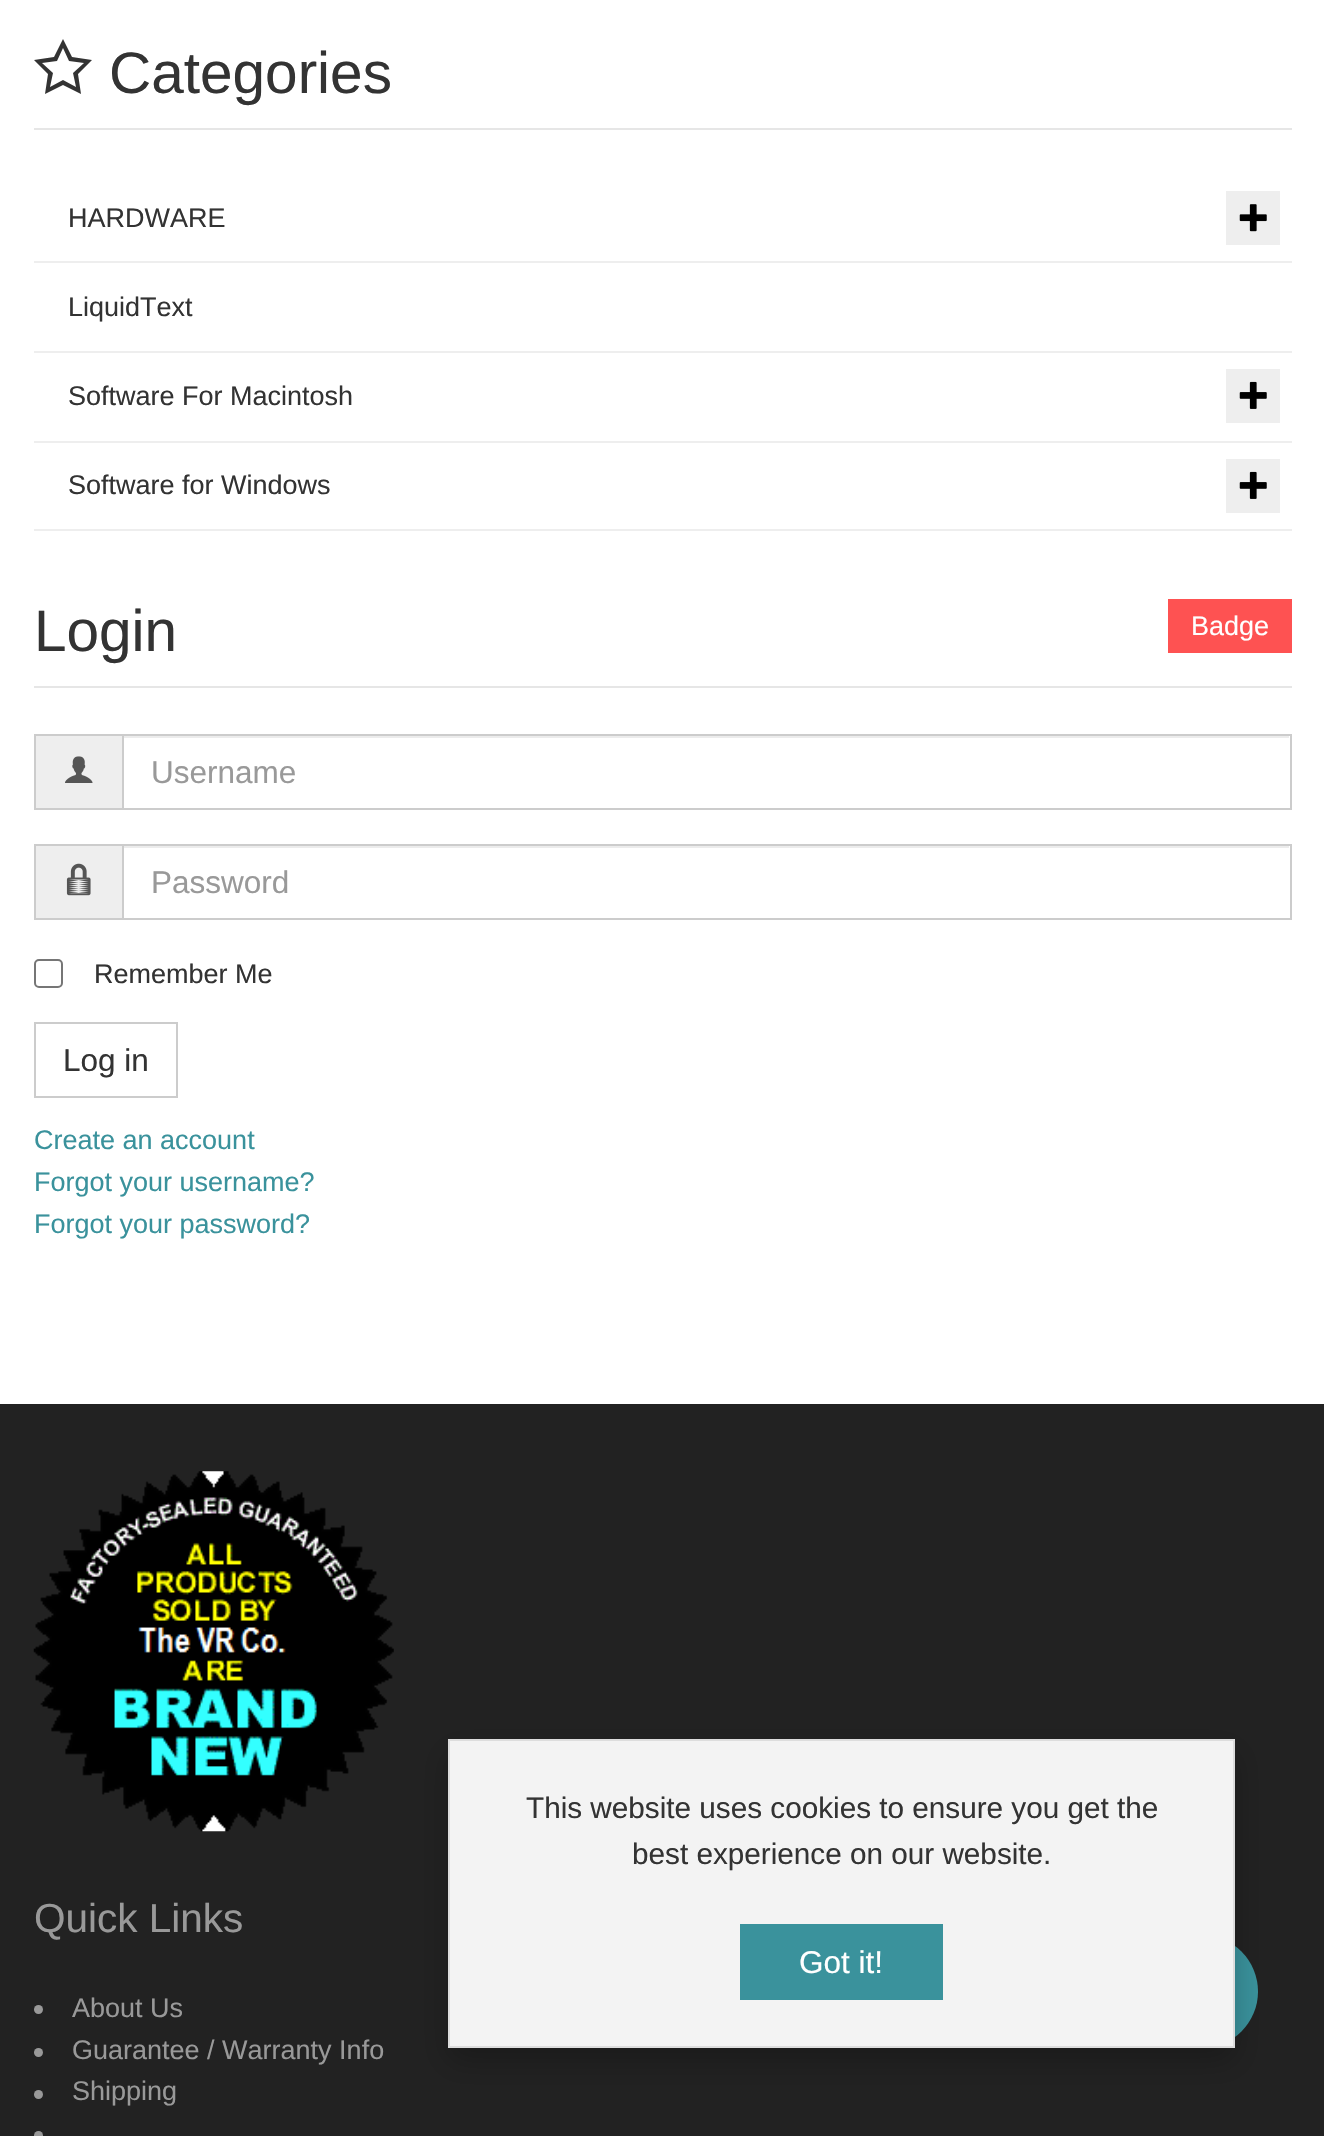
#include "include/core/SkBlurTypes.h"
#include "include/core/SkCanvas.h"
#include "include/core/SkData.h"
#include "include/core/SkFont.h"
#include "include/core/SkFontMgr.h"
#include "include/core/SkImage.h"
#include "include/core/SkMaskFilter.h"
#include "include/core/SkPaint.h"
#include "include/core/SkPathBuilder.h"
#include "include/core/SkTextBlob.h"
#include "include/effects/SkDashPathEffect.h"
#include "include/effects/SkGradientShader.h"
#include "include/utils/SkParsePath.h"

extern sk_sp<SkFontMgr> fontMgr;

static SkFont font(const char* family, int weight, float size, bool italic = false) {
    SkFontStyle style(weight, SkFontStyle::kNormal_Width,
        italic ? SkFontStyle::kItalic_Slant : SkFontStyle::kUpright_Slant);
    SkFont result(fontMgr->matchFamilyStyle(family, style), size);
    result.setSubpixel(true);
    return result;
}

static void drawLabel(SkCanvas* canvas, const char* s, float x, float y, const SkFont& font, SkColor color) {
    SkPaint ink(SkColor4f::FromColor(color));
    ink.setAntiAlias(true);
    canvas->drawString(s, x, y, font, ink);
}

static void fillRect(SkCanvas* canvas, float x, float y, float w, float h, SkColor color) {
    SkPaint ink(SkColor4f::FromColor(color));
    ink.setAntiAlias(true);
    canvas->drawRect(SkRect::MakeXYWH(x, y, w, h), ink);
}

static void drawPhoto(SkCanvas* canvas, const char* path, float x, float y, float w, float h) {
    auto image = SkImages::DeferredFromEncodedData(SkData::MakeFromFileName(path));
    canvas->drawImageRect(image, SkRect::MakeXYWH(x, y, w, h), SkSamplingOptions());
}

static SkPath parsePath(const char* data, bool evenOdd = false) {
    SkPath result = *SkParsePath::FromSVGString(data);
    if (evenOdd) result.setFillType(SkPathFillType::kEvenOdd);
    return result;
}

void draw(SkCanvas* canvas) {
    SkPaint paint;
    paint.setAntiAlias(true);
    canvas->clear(0xFFFFFFFF);
    fillRect(canvas, 34, 128, 1258, 2, 0xFFE6E6E6);
    paint.setColor(0xFF333333);
    canvas->drawPath(parsePath("M92 60L72 57L63 39L54 57L34 60L48 74L45 94L63 85L81 94L78 74ZM63 80L50 87L53 73L42 63L57 61L63 48L69 61L84 63L73 73L76 87Z"), paint);
    SkFont font1 = font("Liberation Sans", 400, 58.5f);
    drawLabel(canvas, "Categories", 109, 93, font1, 0xFF333333);
    fillRect(canvas, 34, 261, 1258, 2, 0xFFEEEEEE);
    SkFont font2 = font("Liberation Sans", 400, 27);
    drawLabel(canvas, "HARDWARE", 68, 227, font2, 0xFF333333);
    fillRect(canvas, 1226, 191, 54, 54, 0xFFEEEEEE);
    drawPhoto(canvas, "assets/img1.png", 1239, 204, 28, 28);
    fillRect(canvas, 34, 351, 1258, 2, 0xFFEEEEEE);
    drawLabel(canvas, "LiquidText", 68, 316, font2, 0xFF333333);
    fillRect(canvas, 34, 441, 1258, 2, 0xFFEEEEEE);
    drawLabel(canvas, "Software For Macintosh", 68, 405, font2, 0xFF333333);
    fillRect(canvas, 1226, 369, 54, 54, 0xFFEEEEEE);
    drawPhoto(canvas, "assets/img2.png", 1239, 381, 28, 28);
    fillRect(canvas, 34, 529, 1258, 2, 0xFFEEEEEE);
    drawLabel(canvas, "Software for Windows", 68, 494, font2, 0xFF333333);
    fillRect(canvas, 1226, 459, 54, 54, 0xFFEEEEEE);
    drawPhoto(canvas, "assets/img2.png", 1239, 471, 28, 28);
    fillRect(canvas, 34, 686, 1258, 2, 0xFFE6E6E6);
    drawLabel(canvas, "Login", 34, 651, font1, 0xFF333333);
    fillRect(canvas, 1168, 599, 124, 54, 0xFFFE5252);
    drawLabel(canvas, "Badge", 1191, 635, font2, 0xFFFFFFFF);
    fillRect(canvas, 36, 736, 86, 72, 0xFFEEEEEE);
    fillRect(canvas, 34, 734, 88, 2, 0xFFCCCCCC);
    fillRect(canvas, 34, 808, 88, 2, 0xFFCCCCCC);
    fillRect(canvas, 34, 734, 2, 76, 0xFFCCCCCC);
    drawPhoto(canvas, "assets/img3.png", 65, 756, 28, 27);
    fillRect(canvas, 124, 736, 1165, 2, 0xFFECECEC);
    paint.setStroke(true);
    paint.setStrokeWidth(2);
    paint.setColor(0xFFCCCCCC);
    canvas->drawRect(SkRect::MakeXYWH(123, 735, 1168, 74), paint);
    SkFont font3 = font("Liberation Sans", 400, 31.5f);
    drawLabel(canvas, "Username", 151, 783, font3, 0xFF999999);
    fillRect(canvas, 36, 846, 86, 72, 0xFFEEEEEE);
    fillRect(canvas, 34, 844, 88, 2, 0xFFCCCCCC);
    fillRect(canvas, 34, 918, 88, 2, 0xFFCCCCCC);
    fillRect(canvas, 34, 844, 2, 76, 0xFFCCCCCC);
    drawPhoto(canvas, "assets/img4.png", 66, 863, 25, 33);
    fillRect(canvas, 124, 846, 1165, 2, 0xFFECECEC);
    canvas->drawRect(SkRect::MakeXYWH(123, 845, 1168, 74), paint);
    drawLabel(canvas, "Password", 151, 893, font3, 0xFF999999);
    paint.setColor(0xFF767676);
    canvas->drawRoundRect(SkRect::MakeXYWH(35, 960, 27, 27), 4, 4, paint);
    drawLabel(canvas, "Remember Me", 94, 983, font2, 0xFF333333);
    paint.setColor(0xFFCCCCCC);
    canvas->drawRect(SkRect::MakeXYWH(35, 1023, 142, 74), paint);
    drawLabel(canvas, "Log in", 63, 1071, font3, 0xFF333333);
    drawLabel(canvas, "Create an account", 34, 1149, font2, 0xFF3A929C);
    drawLabel(canvas, "Forgot your username?", 34, 1191, font2, 0xFF3A929C);
    drawLabel(canvas, "Forgot your password?", 34, 1233, font2, 0xFF3A929C);
    fillRect(canvas, 0, 1404, 1324, 732, 0xFF222222);
    drawPhoto(canvas, "assets/img5.png", 33, 1471, 361, 361);
    SkFont font4 = font("Liberation Sans", 400, 40.5f);
    drawLabel(canvas, "Quick Links", 34, 1932, font4, 0xFF999999);
    paint.setStroke(false);
    paint.setColor(0xFF999999);
    canvas->drawCircle(38.5f, 2009.5f, 4.5f, paint);
    drawLabel(canvas, "About Us", 72, 2017, font2, 0xFF999999);
    canvas->drawCircle(38.5f, 2052.5f, 4.5f, paint);
    drawLabel(canvas, "Guarantee / Warranty Info", 72, 2059, font2, 0xFF999999);
    canvas->drawCircle(38.5f, 2094.5f, 4.5f, paint);
    drawLabel(canvas, "Shipping", 72, 2100, font2, 0xFF999999);
    canvas->drawCircle(38.5f, 2135.5f, 4.5f, paint);
    paint.setColor(0xFF3A929C);
    canvas->drawCircle(1201.5f, 1991.5f, 56.5f, paint);
    paint.setColor(0x3B000000);
    paint.setMaskFilter(SkMaskFilter::MakeBlur(kNormal_SkBlurStyle, 14.5f));
    canvas->drawRect(SkRect::MakeXYWH(448, 1753, 787, 308), paint);
    paint.setMaskFilter(nullptr);
    paint.setColor(0xFFF3F3F3);
    canvas->drawRect(SkRect::MakeXYWH(449, 1740, 785, 307), paint);
    paint.setStroke(true);
    paint.setColor(0xFFDDDDDD);
    canvas->drawRect(SkRect::MakeXYWH(449, 1740, 785, 307), paint);
    SkFont font5 = font("Liberation Sans", 400, 29.7f);
    drawLabel(canvas, "This website uses cookies to ensure you get the", 526, 1818, font5, 0xFF333333);
    drawLabel(canvas, "best experience on our website.", 632, 1864, font5, 0xFF333333);
    fillRect(canvas, 740, 1924, 203, 76, 0xFF3A929C);
    drawLabel(canvas, "Got it!", 799, 1973, font3, 0xFFFFFFFF);
}
